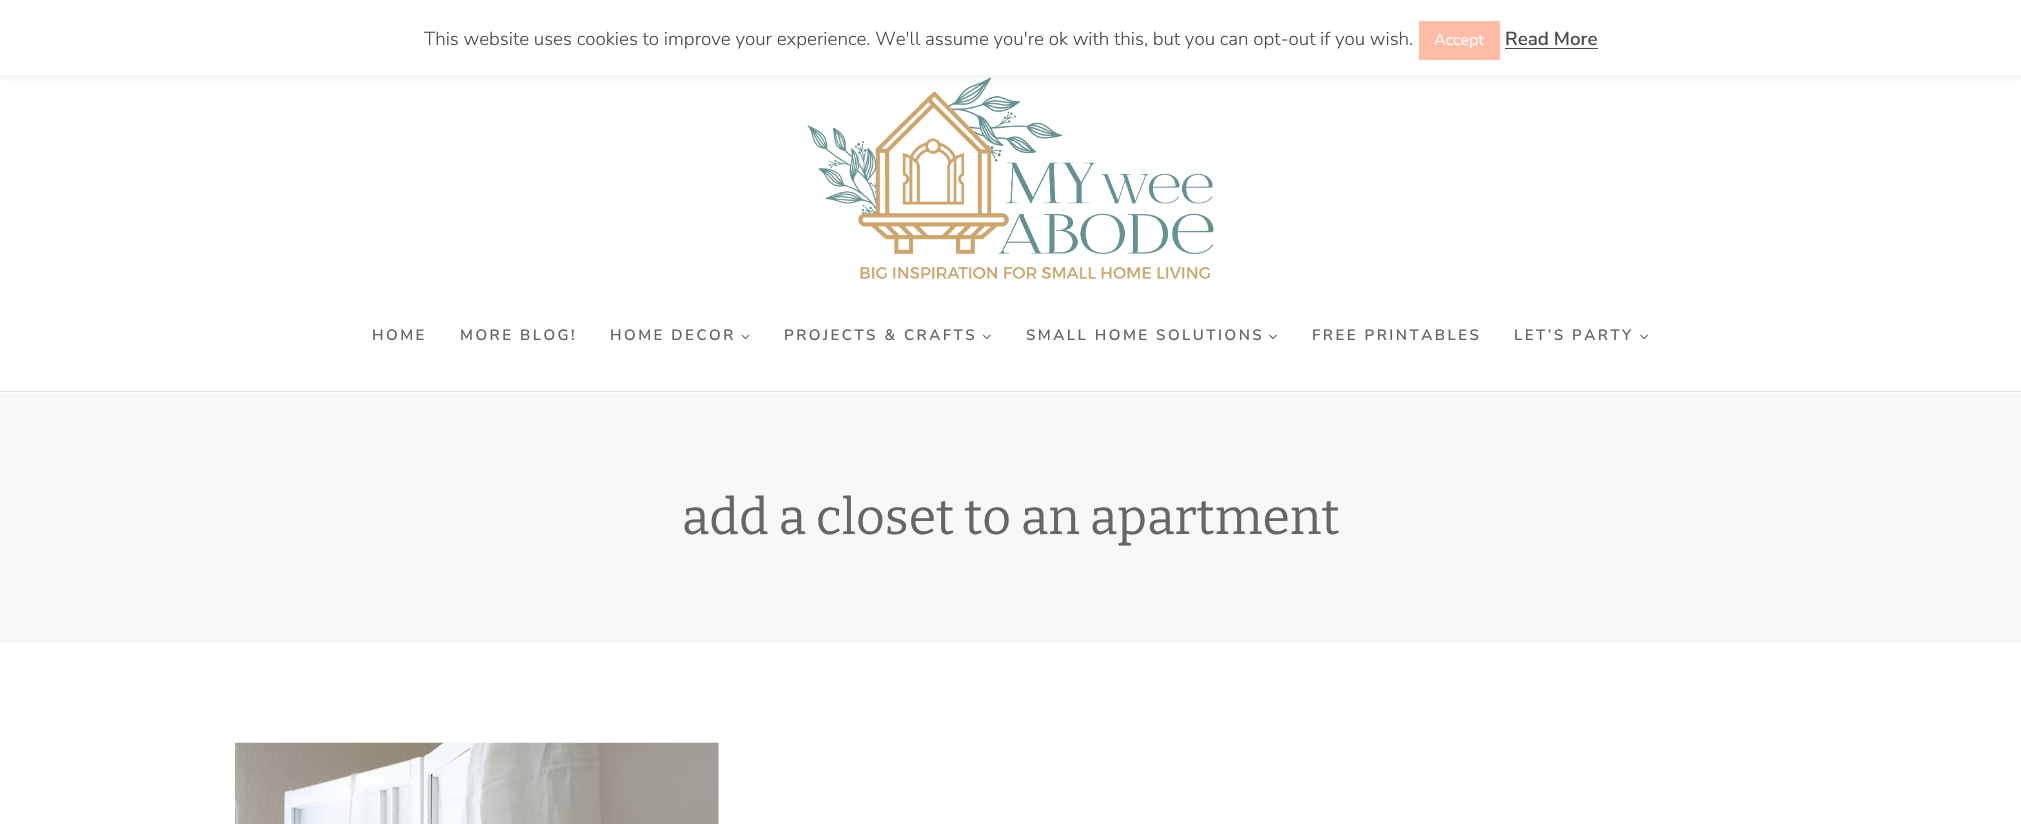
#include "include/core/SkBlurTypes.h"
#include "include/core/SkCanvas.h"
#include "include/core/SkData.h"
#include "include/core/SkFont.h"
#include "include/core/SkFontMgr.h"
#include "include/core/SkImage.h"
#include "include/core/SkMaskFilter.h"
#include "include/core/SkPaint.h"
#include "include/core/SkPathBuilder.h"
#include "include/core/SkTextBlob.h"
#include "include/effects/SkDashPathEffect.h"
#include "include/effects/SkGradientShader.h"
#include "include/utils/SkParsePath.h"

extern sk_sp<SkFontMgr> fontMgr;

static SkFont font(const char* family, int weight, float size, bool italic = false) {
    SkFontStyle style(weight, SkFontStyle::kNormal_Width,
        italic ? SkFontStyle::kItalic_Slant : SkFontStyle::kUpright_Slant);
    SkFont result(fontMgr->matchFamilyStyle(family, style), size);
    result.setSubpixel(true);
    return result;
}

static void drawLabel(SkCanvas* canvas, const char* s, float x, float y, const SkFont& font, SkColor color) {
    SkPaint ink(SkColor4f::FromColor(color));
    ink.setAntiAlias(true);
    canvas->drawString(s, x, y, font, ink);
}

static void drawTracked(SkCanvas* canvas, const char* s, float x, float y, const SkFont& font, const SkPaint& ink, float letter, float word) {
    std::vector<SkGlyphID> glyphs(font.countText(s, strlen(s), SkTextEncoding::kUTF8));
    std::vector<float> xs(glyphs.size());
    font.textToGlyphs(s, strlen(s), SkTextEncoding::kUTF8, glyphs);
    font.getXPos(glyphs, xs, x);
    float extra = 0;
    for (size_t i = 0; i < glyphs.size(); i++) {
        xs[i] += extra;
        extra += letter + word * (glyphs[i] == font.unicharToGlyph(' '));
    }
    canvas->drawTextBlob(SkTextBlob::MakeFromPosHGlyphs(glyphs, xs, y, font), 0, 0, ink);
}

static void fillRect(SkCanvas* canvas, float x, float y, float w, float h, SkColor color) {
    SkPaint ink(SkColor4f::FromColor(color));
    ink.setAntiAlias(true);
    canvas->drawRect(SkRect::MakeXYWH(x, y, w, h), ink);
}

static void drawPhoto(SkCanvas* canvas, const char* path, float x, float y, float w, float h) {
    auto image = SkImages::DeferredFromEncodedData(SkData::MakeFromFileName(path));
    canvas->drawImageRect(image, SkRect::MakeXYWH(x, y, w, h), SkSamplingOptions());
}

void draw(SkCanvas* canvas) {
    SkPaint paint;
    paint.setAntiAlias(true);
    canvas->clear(0xFFFFFFFF);
    drawPhoto(canvas, "assets/img1.png", 807, 77, 407, 202);
    paint.setColor(0x4DACABAB);
    paint.setMaskFilter(SkMaskFilter::MakeBlur(kNormal_SkBlurStyle, 6));
    canvas->drawRect(SkRect::MakeXYWH(0, -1, 2021, 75), paint);
    paint.setMaskFilter(nullptr);
    fillRect(canvas, 0, 0, 2021, 75, 0xFFFFFFFF);
    SkFont font1 = font("Nunito Sans", 300, 18.75f);
    drawLabel(canvas, "This website uses cookies to improve your experience. We'll assume you're ok with this, but you can opt-out if you wish.", 424, 45, font1, 0xFF4B4B4B);
    fillRect(canvas, 1419, 21, 81, 39, 0xFFFFBDA8);
    SkFont font2 = font("Nunito Sans", 400, 16);
    drawLabel(canvas, "Accept", 1434, 45, font2, 0xFFFFFFFF);
    SkFont font3 = font("Nunito Sans", 600, 18.75f);
    drawLabel(canvas, "Read More", 1505, 45, font3, 0xFF4B4B4B);
    fillRect(canvas, 1505, 48, 93, 1, 0xFF4B4B4B);
    fillRect(canvas, 0, 391, 2021, 1, 0xFFE6DED8);
    SkFont font4 = font("Nunito Sans", 600, 15);
    paint.setColor(0xFF666666);
    drawTracked(canvas, "HOME", 372, 340, font4, paint, 2.5f, 0);
    drawTracked(canvas, "MORE BLOG!", 460, 340, font4, paint, 2.5f, 0);
    drawTracked(canvas, "HOME DECOR", 610, 340, font4, paint, 2.5f, 0);
    drawPhoto(canvas, "assets/img2.png", 741, 334, 9, 6);
    drawTracked(canvas, "PROJECTS & CRAFTS", 784, 340, font4, paint, 2.5f, 0);
    drawPhoto(canvas, "assets/img3.png", 982, 334, 9, 6);
    drawTracked(canvas, "SMALL HOME SOLUTIONS", 1026, 340, font4, paint, 2.5f, 0);
    drawPhoto(canvas, "assets/img4.png", 1269, 334, 8, 6);
    drawTracked(canvas, "FREE PRINTABLES", 1312, 340, font4, paint, 2.5f, 0);
    drawTracked(canvas, "LET’S PARTY", 1514, 340, font4, paint, 2.5f, 0);
    drawPhoto(canvas, "assets/img5.png", 1640, 334, 9, 6);
    fillRect(canvas, 0, 393, 2021, 250, 0xFFFAF8F6);
    SkFont font5 = font("Bitter", 400, 50);
    drawLabel(canvas, "add a closet to an apartment", 682, 534, font5, 0xFF666666);
    drawPhoto(canvas, "assets/img6.png", 235, 742, 484, 82);
}
